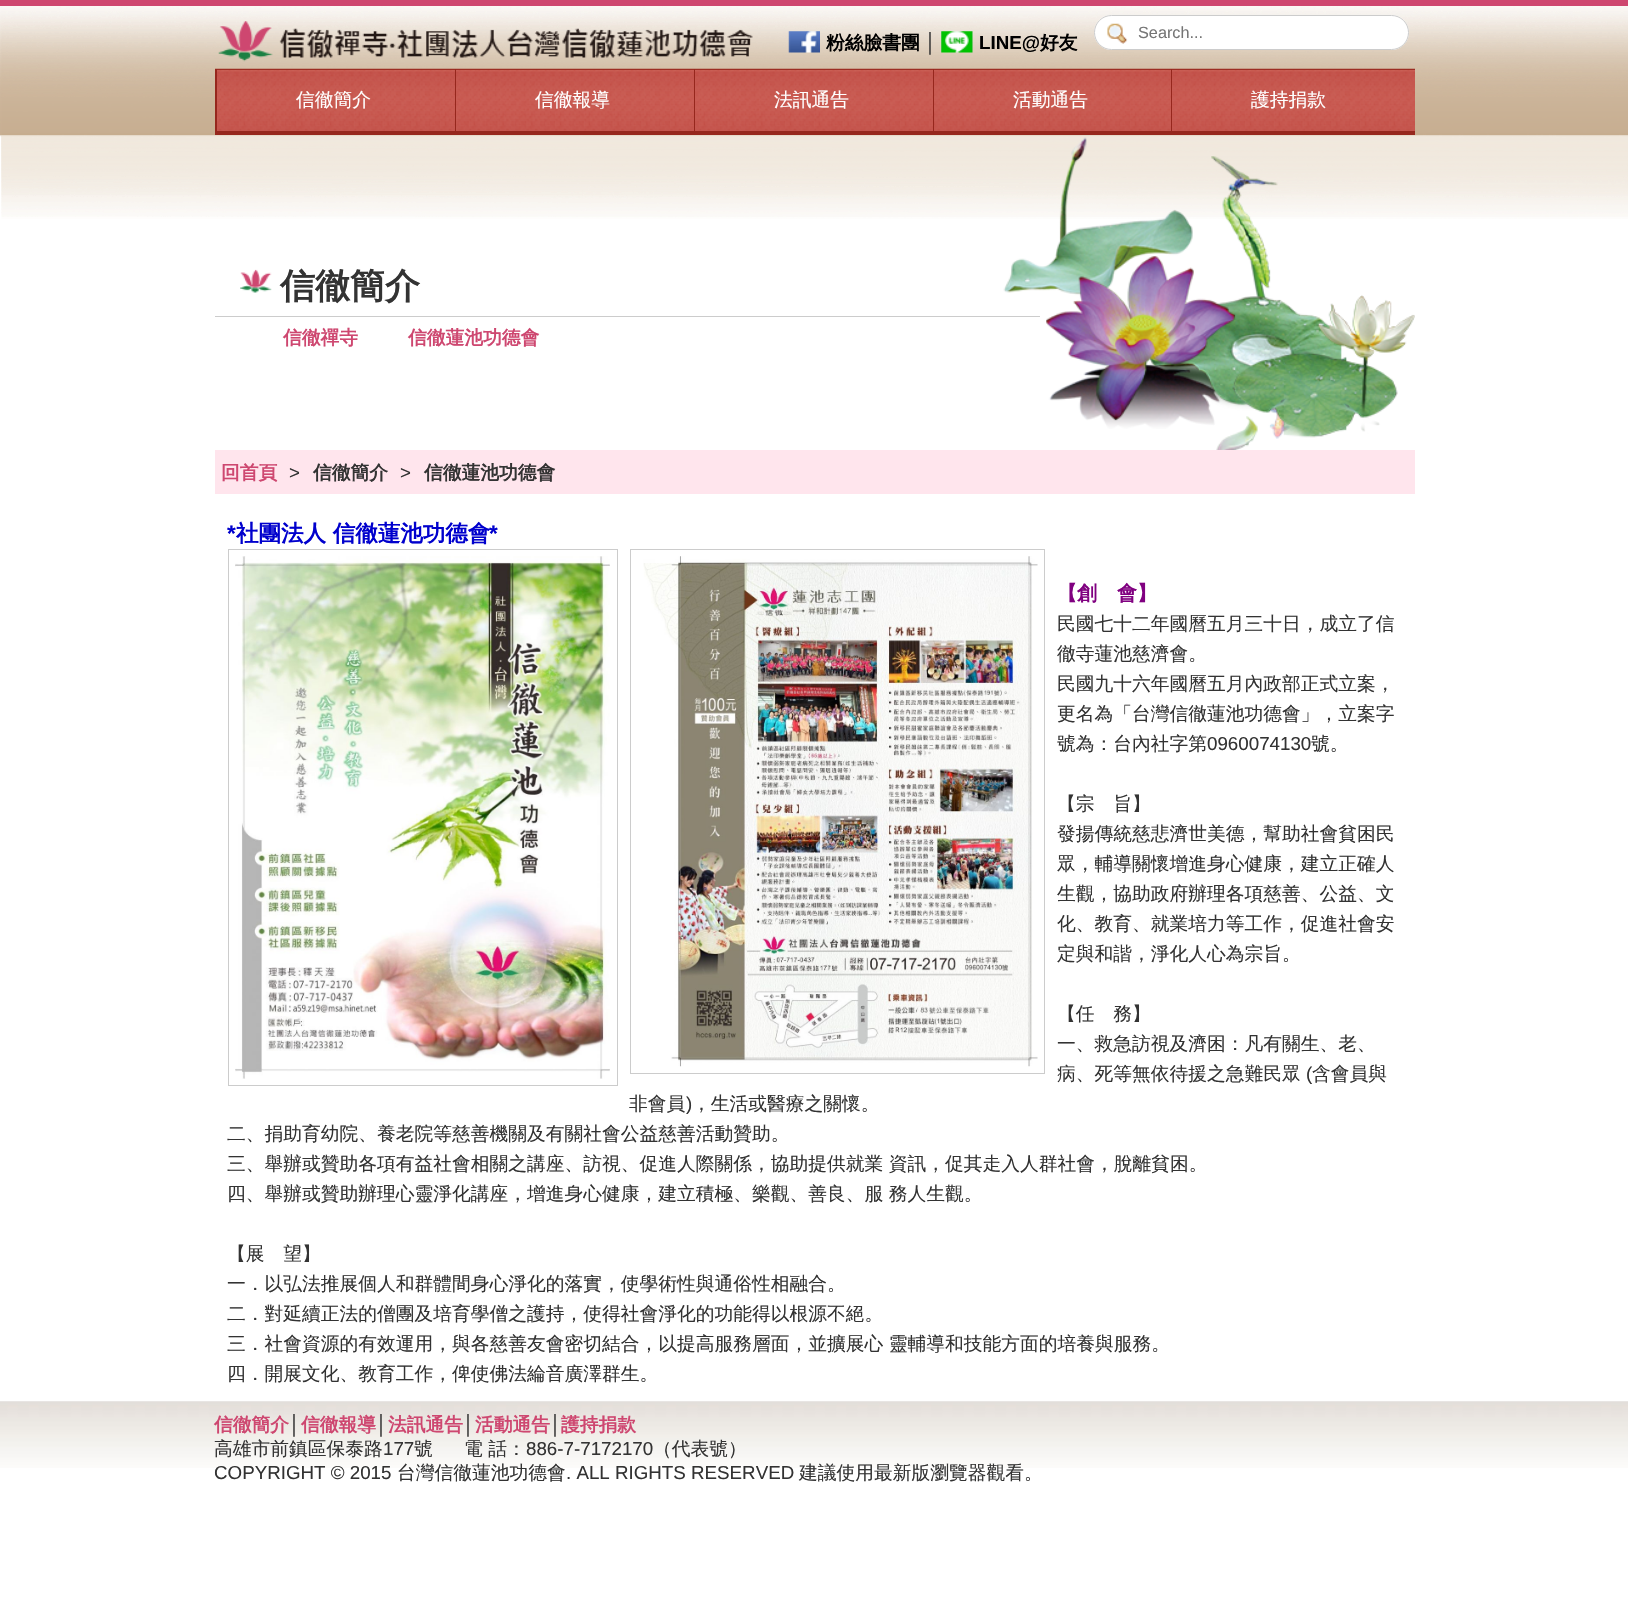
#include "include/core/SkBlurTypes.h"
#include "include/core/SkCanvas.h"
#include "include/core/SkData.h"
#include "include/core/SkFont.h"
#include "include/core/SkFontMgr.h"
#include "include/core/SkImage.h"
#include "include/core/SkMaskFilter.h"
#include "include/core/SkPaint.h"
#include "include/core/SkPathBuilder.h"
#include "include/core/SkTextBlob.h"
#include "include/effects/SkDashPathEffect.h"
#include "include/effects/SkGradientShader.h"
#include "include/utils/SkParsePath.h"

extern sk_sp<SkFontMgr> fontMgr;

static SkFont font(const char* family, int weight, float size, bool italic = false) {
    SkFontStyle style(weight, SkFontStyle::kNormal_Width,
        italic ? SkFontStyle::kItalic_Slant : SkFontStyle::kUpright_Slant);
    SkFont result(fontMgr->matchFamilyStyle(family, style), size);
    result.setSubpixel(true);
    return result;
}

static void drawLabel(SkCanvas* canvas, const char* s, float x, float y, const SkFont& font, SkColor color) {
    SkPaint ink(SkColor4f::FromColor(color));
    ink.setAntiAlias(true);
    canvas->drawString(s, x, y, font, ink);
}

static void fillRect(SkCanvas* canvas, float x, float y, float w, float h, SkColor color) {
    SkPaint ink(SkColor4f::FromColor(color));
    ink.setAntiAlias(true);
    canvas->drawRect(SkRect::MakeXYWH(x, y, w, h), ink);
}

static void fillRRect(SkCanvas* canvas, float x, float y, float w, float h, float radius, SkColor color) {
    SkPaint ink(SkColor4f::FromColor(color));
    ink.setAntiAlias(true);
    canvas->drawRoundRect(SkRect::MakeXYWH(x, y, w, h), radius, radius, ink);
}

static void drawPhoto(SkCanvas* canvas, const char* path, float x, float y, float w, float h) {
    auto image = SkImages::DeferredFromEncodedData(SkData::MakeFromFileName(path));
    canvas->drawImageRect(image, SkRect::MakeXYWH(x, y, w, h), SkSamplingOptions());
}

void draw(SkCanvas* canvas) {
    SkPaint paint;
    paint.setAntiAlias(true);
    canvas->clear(0xFFFFFFFF);
    drawPhoto(canvas, "assets/img1.png", 0, 6, 1628, 213);
    drawPhoto(canvas, "assets/img2.png", 0, 6, 1628, 211);
    fillRect(canvas, 0, 0, 1628, 6, 0xFFCE4770);
    drawPhoto(canvas, "assets/img3.png", 218, 21, 535, 41);
    drawPhoto(canvas, "assets/img4.png", 788, 31, 32, 22);
    SkFont font1 = font("WenQuanYi Zen Hei", 700, 18.75f);
    drawLabel(canvas, "粉絲臉書團", 826, 49, font1, 0xFF000000);
    SkFont font2 = font("Liberation Sans", 400, 18.75f);
    drawLabel(canvas, "│", 925, 49, font2, 0xFF333333);
    drawPhoto(canvas, "assets/img5.png", 941, 31, 32, 22);
    SkFont font3 = font("Liberation Sans", 700, 18.75f);
    drawLabel(canvas, "LINE@", 979, 49, font3, 0xFF000000);
    drawLabel(canvas, "好友", 1040, 49, font1, 0xFF000000);
    fillRRect(canvas, 1094, 15, 315, 35, 17.5f, 0xFFFFFFFF);
    drawPhoto(canvas, "assets/img6.png", 1107, 23, 21, 21);
    paint.setStroke(true);
    paint.setStrokeWidth(1);
    paint.setColor(0xFFCCCCCC);
    canvas->drawRoundRect(SkRect::MakeXYWH(1094.5f, 15.5f, 314, 34), 17, 17, paint);
    SkFont font4 = font("Liberation Sans", 400, 16.25f);
    drawLabel(canvas, "Search...", 1138, 38, font4, 0xFF757575);
    drawPhoto(canvas, "assets/img7.png", 215, 68, 1200, 63);
    fillRect(canvas, 215, 131, 1200, 4, 0xFF96271D);
    fillRect(canvas, 215, 69, 1, 66, 0xFF96271D);
    fillRect(canvas, 216, 69, 1, 62, 0xFF96271D);
    SkFont font5 = font("WenQuanYi Zen Hei", 500, 18.75f);
    drawLabel(canvas, "信徹簡介", 296, 106, font5, 0xFFFFFFFF);
    fillRect(canvas, 455, 69, 1, 62, 0xFF96271D);
    drawLabel(canvas, "信徹報導", 535, 106, font5, 0xFFFFFFFF);
    fillRect(canvas, 694, 69, 1, 62, 0xFF96271D);
    drawLabel(canvas, "法訊通告", 774, 106, font5, 0xFFFFFFFF);
    fillRect(canvas, 933, 69, 1, 62, 0xFF96271D);
    drawLabel(canvas, "活動通告", 1013, 106, font5, 0xFFFFFFFF);
    fillRect(canvas, 1171, 69, 1, 62, 0xFF96271D);
    drawLabel(canvas, "護持捐款", 1251, 106, font5, 0xFFFFFFFF);
    drawPhoto(canvas, "assets/img8.png", 1003, 137, 412, 313);
    fillRect(canvas, 215, 316, 825, 1, 0xFFCCCCCC);
    drawPhoto(canvas, "assets/img9.png", 240, 269, 32, 24);
    SkFont font6 = font("WenQuanYi Zen Hei", 700, 35);
    drawLabel(canvas, "信徹簡介", 280, 298, font6, 0xFF333333);
    drawLabel(canvas, "信徹禪寺", 283, 344, font1, 0xFFCE4770);
    drawLabel(canvas, "信徹蓮池功德會", 408, 344, font1, 0xFFCE4770);
    fillRect(canvas, 215, 450, 1200, 44, 0xFFFFE5ED);
    drawLabel(canvas, "回首頁", 221, 479, font1, 0xFFCE4770);
    drawLabel(canvas, ">", 289, 479, font2, 0xFF333333);
    drawLabel(canvas, "信徹簡介", 313, 479, font1, 0xFF333333);
    drawLabel(canvas, ">", 400, 479, font2, 0xFF333333);
    drawLabel(canvas, "信徹蓮池功德會", 424, 479, font1, 0xFF333333);
    SkFont font7 = font("Liberation Sans", 700, 22.5f);
    drawLabel(canvas, "*", 227, 541, font7, 0xFF0000CD);
    SkFont font8 = font("WenQuanYi Zen Hei", 700, 22.5f);
    drawLabel(canvas, "社團法人 信徹蓮池功德會", 236, 541, font8, 0xFF0000CD);
    drawLabel(canvas, "*", 489, 541, font7, 0xFF0000CD);
    canvas->drawRect(SkRect::MakeXYWH(228.5f, 549.5f, 389, 536), paint);
    drawPhoto(canvas, "assets/img10.png", 235, 556, 375, 523);
    canvas->drawRect(SkRect::MakeXYWH(630.5f, 549.5f, 414, 524), paint);
    drawPhoto(canvas, "assets/img11.png", 643, 556, 395, 511);
    SkFont font9 = font("WenQuanYi Zen Hei", 700, 20);
    drawLabel(canvas, "【創　會】", 1057, 600, font9, 0xFF800080);
    drawLabel(canvas, "民國七十二年國曆五月三十日，成立了信", 1057, 630, font5, 0xFF333333);
    drawLabel(canvas, "徹寺蓮池慈濟會。", 1057, 660, font5, 0xFF333333);
    drawLabel(canvas, "民國九十六年國曆五月內政部正式立案，", 1057, 690, font5, 0xFF333333);
    drawLabel(canvas, "更名為「台灣信徹蓮池功德會」，立案字", 1057, 720, font5, 0xFF333333);
    drawLabel(canvas, "號為：台內社字第", 1057, 750, font5, 0xFF333333);
    drawLabel(canvas, "0960074130", 1207, 750, font2, 0xFF333333);
    drawLabel(canvas, "號。", 1311, 750, font5, 0xFF333333);
    drawLabel(canvas, "【宗　旨】", 1057, 810, font5, 0xFF333333);
    drawLabel(canvas, "發揚傳統慈悲濟世美德，幫助社會貧困民", 1057, 840, font5, 0xFF333333);
    drawLabel(canvas, "眾，輔導關懷增進身心健康，建立正確人", 1057, 870, font5, 0xFF333333);
    drawLabel(canvas, "生觀，協助政府辦理各項慈善、公益、文", 1057, 900, font5, 0xFF333333);
    drawLabel(canvas, "化、教育、就業培力等工作，促進社會安", 1057, 930, font5, 0xFF333333);
    drawLabel(canvas, "定與和諧，淨化人心為宗旨。", 1057, 960, font5, 0xFF333333);
    drawLabel(canvas, "【任　務】", 1057, 1020, font5, 0xFF333333);
    drawLabel(canvas, "一、救急訪視及濟困：凡有關生、老、", 1057, 1050, font5, 0xFF333333);
    drawLabel(canvas, "病、死等無依待援之急難民眾", 1057, 1080, font5, 0xFF333333);
    drawLabel(canvas, "(", 1306, 1080, font2, 0xFF333333);
    drawLabel(canvas, "含會員與", 1312, 1080, font5, 0xFF333333);
    drawLabel(canvas, "非會員", 629, 1110, font5, 0xFF333333);
    drawLabel(canvas, ")", 686, 1110, font2, 0xFF333333);
    drawLabel(canvas, "，生活或醫療之關懷。", 692, 1110, font5, 0xFF333333);
    drawLabel(canvas, "二、捐助育幼院、養老院等慈善機關及有關社會公益慈善活動贊助。", 227, 1140, font5, 0xFF333333);
    drawLabel(canvas, "三、舉辦或贊助各項有益社會相關之講座、訪視、促進人際關係，協助提供就業 資訊，促其走入人群社會，脫離貧困。", 227, 1170, font5, 0xFF333333);
    drawLabel(canvas, "四、舉辦或贊助辦理心靈淨化講座，增進身心健康，建立積極、樂觀、善良、服 務人生觀。", 227, 1200, font5, 0xFF333333);
    drawLabel(canvas, "【展　望】", 227, 1260, font5, 0xFF333333);
    drawLabel(canvas, "一．以弘法推展個人和群體間身心淨化的落實，使學術性與通俗性相融合。", 227, 1290, font5, 0xFF333333);
    drawLabel(canvas, "二．對延續正法的僧團及培育學僧之護持，使得社會淨化的功能得以根源不絕。", 227, 1320, font5, 0xFF333333);
    drawLabel(canvas, "三．社會資源的有效運用，與各慈善友會密切結合，以提高服務層面，並擴展心 靈輔導和技能方面的培養與服務。", 227, 1350, font5, 0xFF333333);
    drawLabel(canvas, "四．開展文化、教育工作，俾使佛法綸音廣澤群生。", 227, 1380, font5, 0xFF333333);
    drawPhoto(canvas, "assets/img12.png", 0, 1401, 1628, 67);
    drawLabel(canvas, "信徹簡介", 214, 1431, font1, 0xFFCE4770);
    drawLabel(canvas, "│", 289, 1431, font2, 0xFF333333);
    drawLabel(canvas, "信徹報導", 301, 1431, font1, 0xFFCE4770);
    drawLabel(canvas, "│", 376, 1431, font2, 0xFF333333);
    drawLabel(canvas, "法訊通告", 388, 1431, font1, 0xFFCE4770);
    drawLabel(canvas, "│", 463, 1431, font2, 0xFF333333);
    drawLabel(canvas, "活動通告", 475, 1431, font1, 0xFFCE4770);
    drawLabel(canvas, "│", 550, 1431, font2, 0xFF333333);
    drawLabel(canvas, "護持捐款", 561, 1431, font1, 0xFFCE4770);
    drawLabel(canvas, "高雄市前鎮區保泰路", 214, 1455, font5, 0xFF333333);
    drawLabel(canvas, "177", 383, 1455, font2, 0xFF333333);
    drawLabel(canvas, "號", 414, 1455, font5, 0xFF333333);
    drawLabel(canvas, "電 話：", 464, 1455, font5, 0xFF333333);
    drawLabel(canvas, "886-7-7172170", 526, 1455, font2, 0xFF333333);
    drawLabel(canvas, "（代表號）", 653, 1455, font5, 0xFF333333);
    drawLabel(canvas, "COPYRIGHT © 2015", 214, 1479, font2, 0xFF333333);
    drawLabel(canvas, "台灣信徹蓮池功德會", 397, 1479, font5, 0xFF333333);
    drawLabel(canvas, ". ALL RIGHTS RESERVED", 566, 1479, font2, 0xFF333333);
    drawLabel(canvas, "建議使用最新版瀏覽器觀看。", 799, 1479, font5, 0xFF333333);
}
